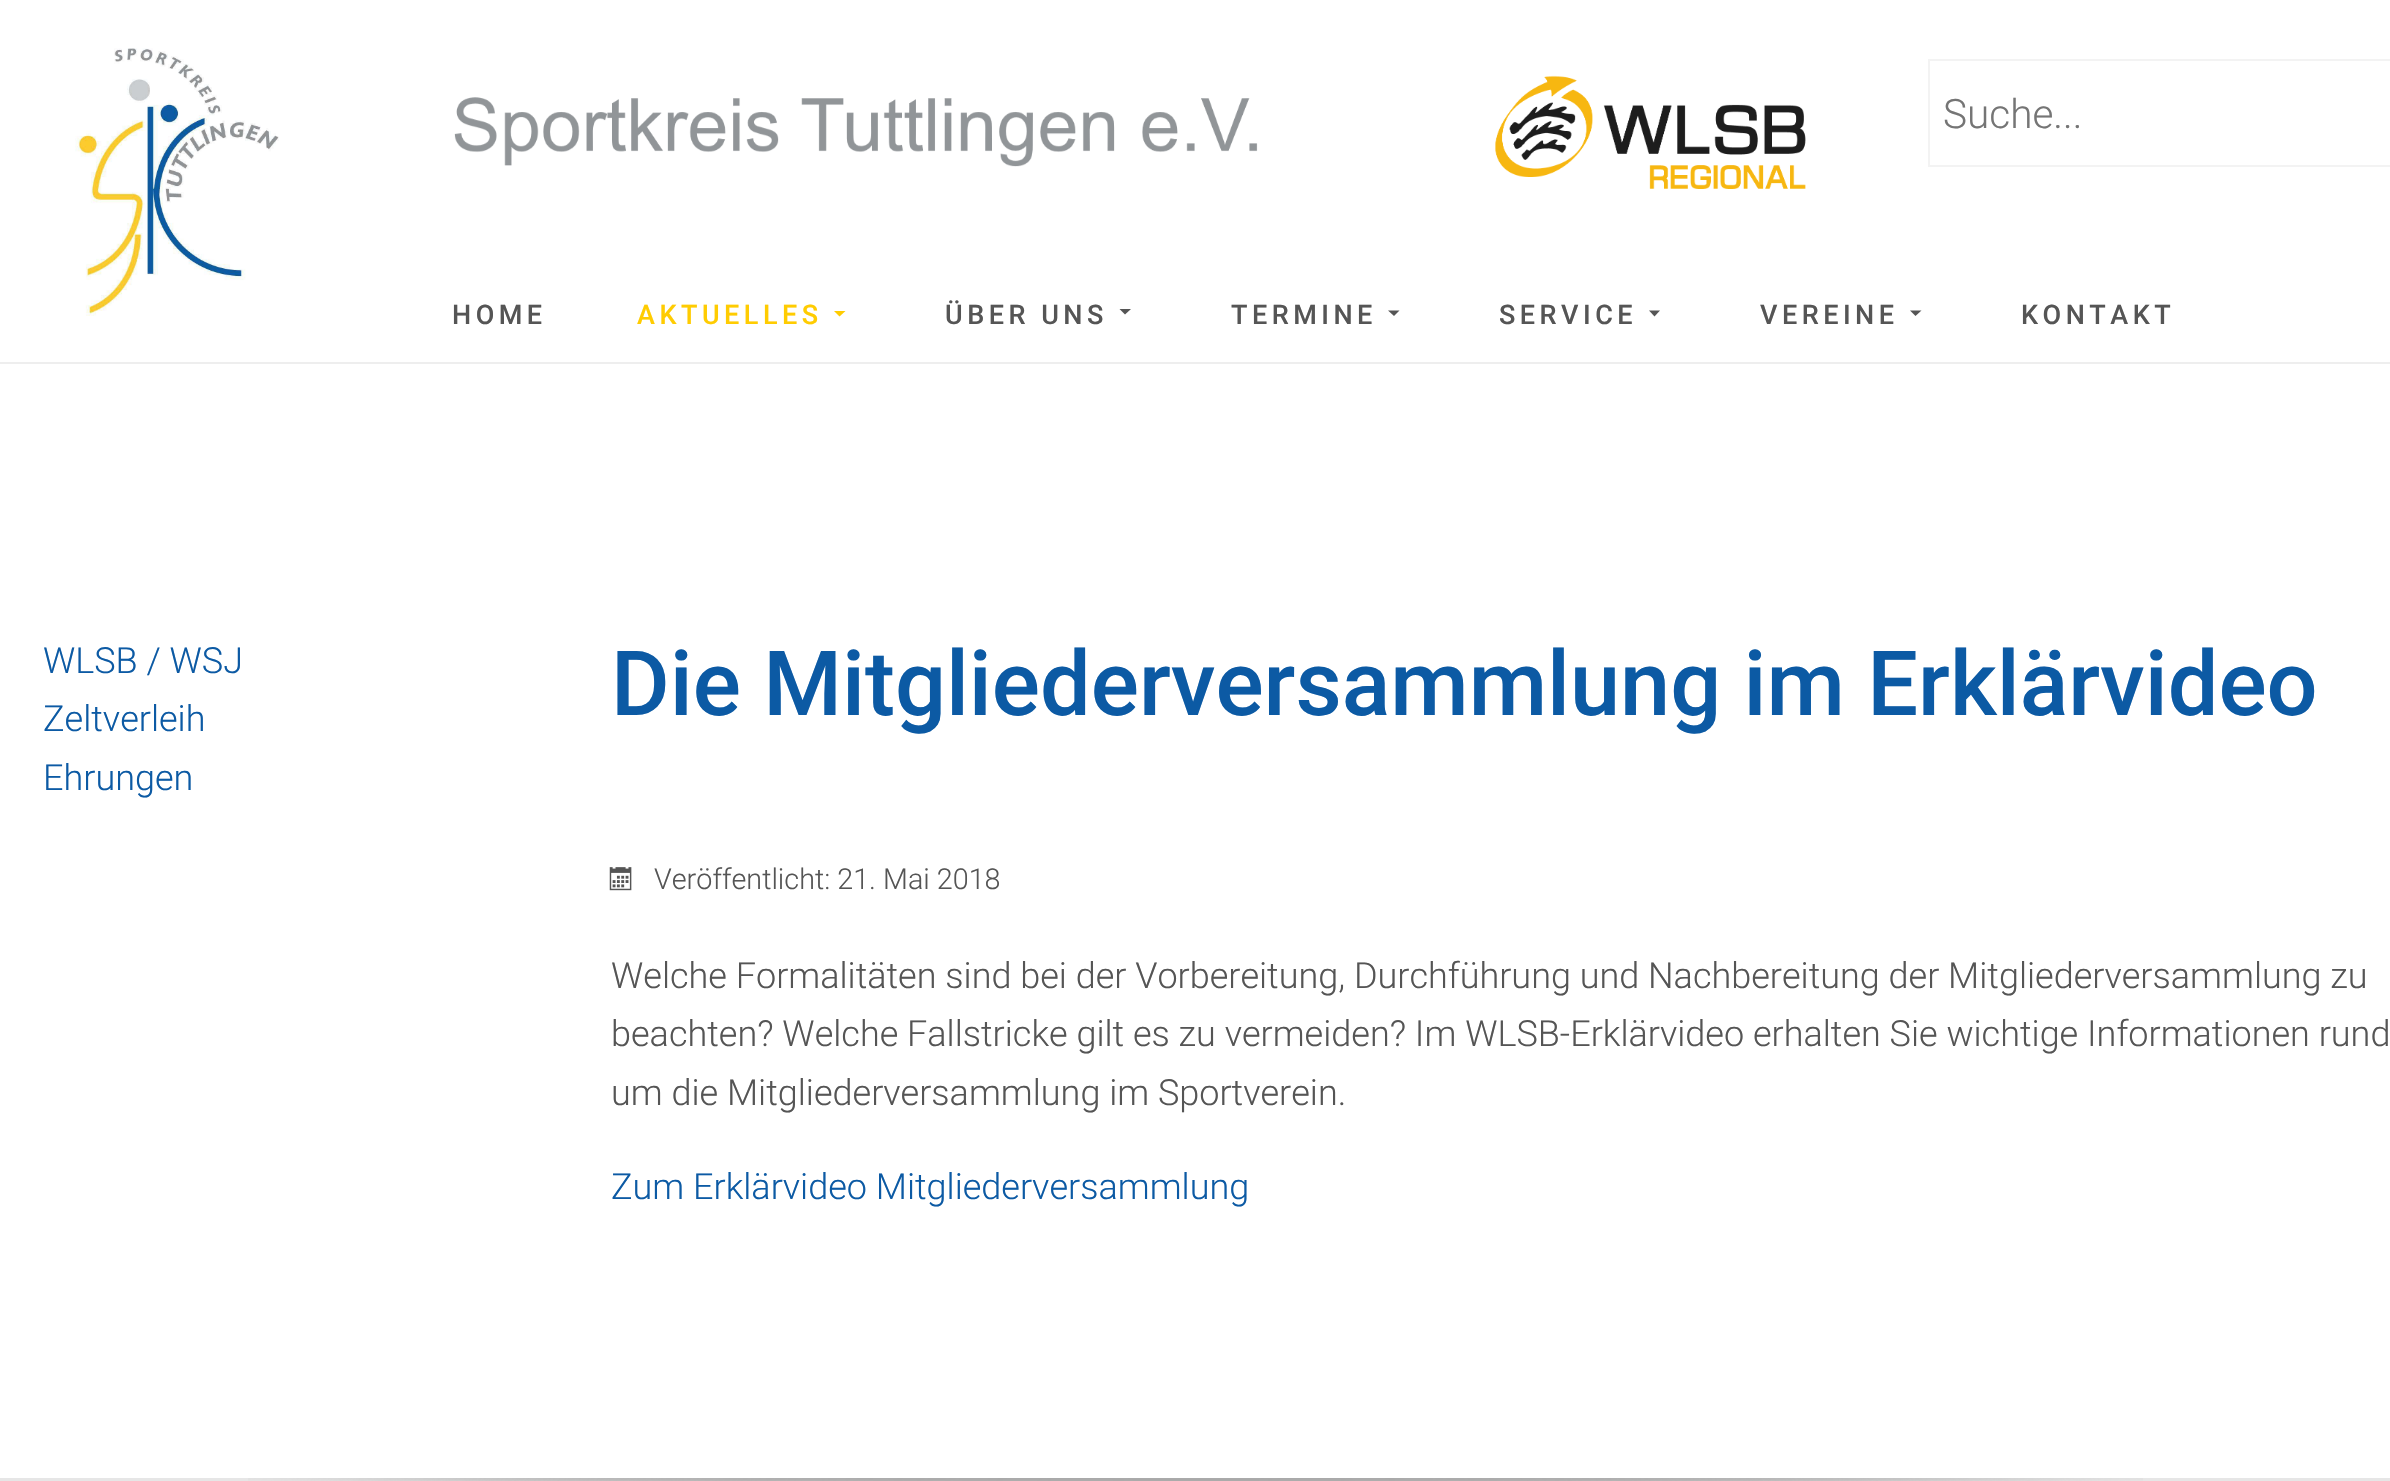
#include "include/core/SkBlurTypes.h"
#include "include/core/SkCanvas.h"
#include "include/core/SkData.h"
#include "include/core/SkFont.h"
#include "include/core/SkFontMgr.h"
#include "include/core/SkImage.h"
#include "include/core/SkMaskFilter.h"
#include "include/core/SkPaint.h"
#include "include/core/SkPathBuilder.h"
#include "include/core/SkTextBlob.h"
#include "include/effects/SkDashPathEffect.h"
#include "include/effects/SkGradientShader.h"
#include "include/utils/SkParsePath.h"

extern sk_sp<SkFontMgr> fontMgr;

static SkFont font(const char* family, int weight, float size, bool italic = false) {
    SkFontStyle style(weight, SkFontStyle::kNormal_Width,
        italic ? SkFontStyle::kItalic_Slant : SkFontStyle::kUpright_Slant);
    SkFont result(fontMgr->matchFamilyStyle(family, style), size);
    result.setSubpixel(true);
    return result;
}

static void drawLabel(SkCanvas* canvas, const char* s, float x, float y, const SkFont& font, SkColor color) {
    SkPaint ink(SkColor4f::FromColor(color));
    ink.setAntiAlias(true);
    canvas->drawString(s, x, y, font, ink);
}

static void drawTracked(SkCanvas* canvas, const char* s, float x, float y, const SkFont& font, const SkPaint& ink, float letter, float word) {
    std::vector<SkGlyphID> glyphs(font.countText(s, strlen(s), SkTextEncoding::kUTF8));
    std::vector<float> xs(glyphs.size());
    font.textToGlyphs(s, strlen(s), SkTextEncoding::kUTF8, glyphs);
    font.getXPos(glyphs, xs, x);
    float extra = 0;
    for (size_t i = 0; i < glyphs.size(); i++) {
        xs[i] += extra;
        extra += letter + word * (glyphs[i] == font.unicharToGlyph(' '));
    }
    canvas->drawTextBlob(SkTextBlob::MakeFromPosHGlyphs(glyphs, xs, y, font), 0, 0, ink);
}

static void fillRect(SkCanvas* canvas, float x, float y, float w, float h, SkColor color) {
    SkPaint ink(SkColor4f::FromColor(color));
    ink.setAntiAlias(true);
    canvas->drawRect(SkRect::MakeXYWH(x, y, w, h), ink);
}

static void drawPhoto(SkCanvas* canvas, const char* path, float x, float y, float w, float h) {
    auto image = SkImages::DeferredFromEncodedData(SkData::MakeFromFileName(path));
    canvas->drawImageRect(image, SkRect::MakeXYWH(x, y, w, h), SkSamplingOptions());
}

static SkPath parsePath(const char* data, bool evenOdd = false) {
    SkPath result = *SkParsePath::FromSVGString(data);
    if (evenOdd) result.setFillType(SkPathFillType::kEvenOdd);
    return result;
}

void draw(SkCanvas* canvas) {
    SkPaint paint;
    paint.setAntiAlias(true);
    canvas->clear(0xFFFFFFFF);
    fillRect(canvas, 0, 362, 2390, 2, 0xFFEEEEEE);
    drawPhoto(canvas, "assets/img1.png", 75, 48, 204, 268);
    drawPhoto(canvas, "assets/img2.png", 454, 97, 804, 70);
    drawPhoto(canvas, "assets/img3.png", 1495, 75, 311, 114);
    paint.setStroke(true);
    paint.setStrokeWidth(2);
    paint.setColor(0xFFF3F3F3);
    canvas->drawRect(SkRect::MakeXYWH(1929, 60, 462, 106), paint);
    SkFont font1 = font("Roboto", 300, 40.5f);
    drawLabel(canvas, "Suche...", 1943, 128, font1, 0xFF757575);
    SkFont font2 = font("Roboto", 500, 27);
    paint.setStroke(false);
    paint.setColor(0xFF555555);
    drawTracked(canvas, "HOME", 452, 324, font2, paint, 4.5f, 0);
    paint.setColor(0xFFFFCC01);
    drawTracked(canvas, "AKTUELLES", 637, 324, font2, paint, 4.5f, 0);
    canvas->drawPath(parsePath("M834 311H845.5L839.5 316.5Z"), paint);
    paint.setColor(0xFF555555);
    drawTracked(canvas, "ÜBER UNS", 945, 324, font2, paint, 4.5f, 0);
    canvas->drawPath(parsePath("M1119.5 309H1131L1125 314.5Z"), paint);
    drawTracked(canvas, "TERMINE", 1231, 324, font2, paint, 4.5f, 0);
    canvas->drawPath(parsePath("M1388 310.5H1399.5L1394 316Z"), paint);
    drawTracked(canvas, "SERVICE", 1499, 324, font2, paint, 4.5f, 0);
    canvas->drawPath(parsePath("M1649 310.5H1660L1654.5 316.5Z"), paint);
    drawTracked(canvas, "VEREINE", 1760, 324, font2, paint, 4.5f, 0);
    canvas->drawPath(parsePath("M1910 310.5H1921.5L1915.5 316Z"), paint);
    drawTracked(canvas, "KONTAKT", 2021, 324, font2, paint, 4.5f, 0);
    SkFont font3 = font("Roboto", 300, 36);
    drawLabel(canvas, "WLSB / WSJ", 43, 673, font3, 0xFF0C5AA4);
    drawLabel(canvas, "Zeltverleih", 43, 731, font3, 0xFF0C5AA4);
    drawLabel(canvas, "Ehrungen", 43, 790, font3, 0xFF0C5AA4);
    SkFont font4 = font("Roboto", 500, 90);
    drawLabel(canvas, "Die Mitgliederversammlung im Erklärvideo", 611, 715, font4, 0xFF0C5AA4);
    drawPhoto(canvas, "assets/img4.png", 609, 867, 23, 24);
    SkFont font5 = font("Roboto", 300, 28.75f);
    drawLabel(canvas, "Veröffentlicht: 21. Mai 2018", 654, 889, font5, 0xFF555555);
    drawLabel(canvas, "Welche Formalitäten sind bei der Vorbereitung, Durchführung und Nachbereitung der Mitgliederversammlung zu", 611, 988, font3, 0xFF555555);
    drawLabel(canvas, "beachten? Welche Fallstricke gilt es zu vermeiden? Im WLSB-Erklärvideo erhalten Sie wichtige Informationen rund", 611, 1046, font3, 0xFF555555);
    drawLabel(canvas, "um die Mitgliederversammlung im Sportverein.", 611, 1105, font3, 0xFF555555);
    drawLabel(canvas, "Zum Erklärvideo Mitgliederversammlung", 611, 1199, font3, 0xFF0C5AA4);
    fillRect(canvas, 0, 1478, 2390, 3, 0xFFE6E6E6);
    drawPhoto(canvas, "assets/img5.png", 248, 1478, 1895, 3);
}
